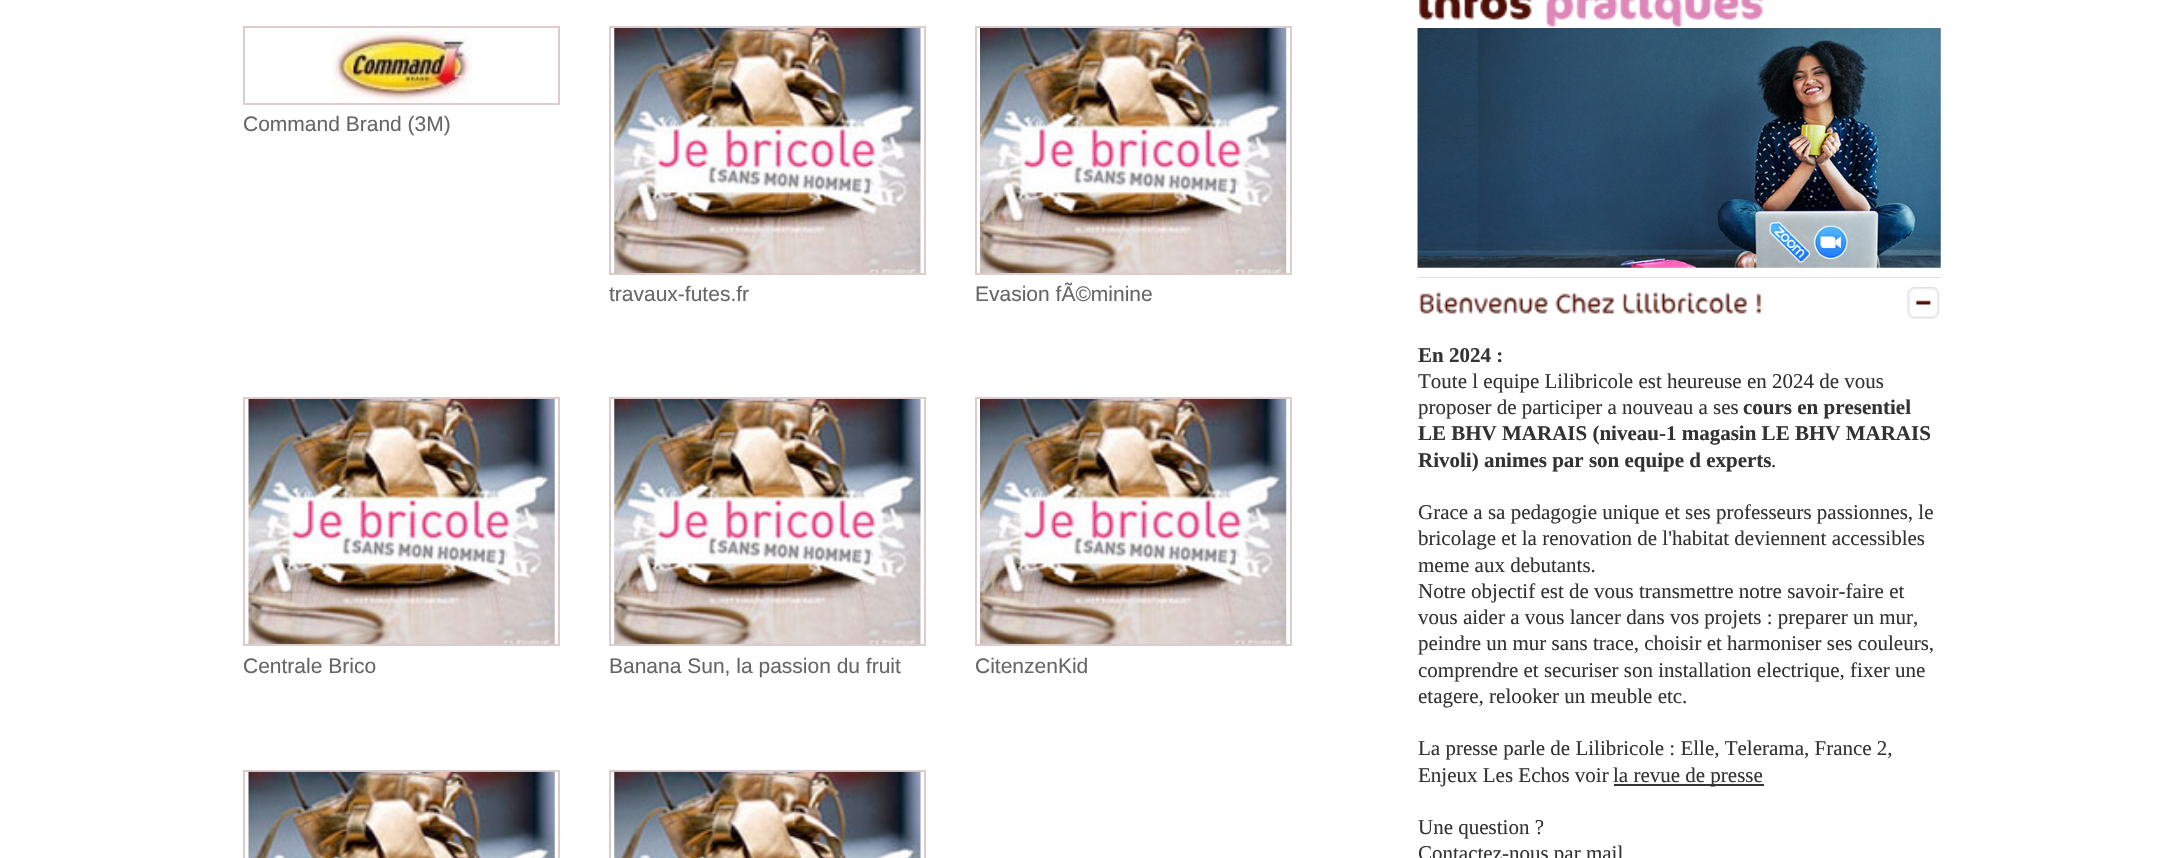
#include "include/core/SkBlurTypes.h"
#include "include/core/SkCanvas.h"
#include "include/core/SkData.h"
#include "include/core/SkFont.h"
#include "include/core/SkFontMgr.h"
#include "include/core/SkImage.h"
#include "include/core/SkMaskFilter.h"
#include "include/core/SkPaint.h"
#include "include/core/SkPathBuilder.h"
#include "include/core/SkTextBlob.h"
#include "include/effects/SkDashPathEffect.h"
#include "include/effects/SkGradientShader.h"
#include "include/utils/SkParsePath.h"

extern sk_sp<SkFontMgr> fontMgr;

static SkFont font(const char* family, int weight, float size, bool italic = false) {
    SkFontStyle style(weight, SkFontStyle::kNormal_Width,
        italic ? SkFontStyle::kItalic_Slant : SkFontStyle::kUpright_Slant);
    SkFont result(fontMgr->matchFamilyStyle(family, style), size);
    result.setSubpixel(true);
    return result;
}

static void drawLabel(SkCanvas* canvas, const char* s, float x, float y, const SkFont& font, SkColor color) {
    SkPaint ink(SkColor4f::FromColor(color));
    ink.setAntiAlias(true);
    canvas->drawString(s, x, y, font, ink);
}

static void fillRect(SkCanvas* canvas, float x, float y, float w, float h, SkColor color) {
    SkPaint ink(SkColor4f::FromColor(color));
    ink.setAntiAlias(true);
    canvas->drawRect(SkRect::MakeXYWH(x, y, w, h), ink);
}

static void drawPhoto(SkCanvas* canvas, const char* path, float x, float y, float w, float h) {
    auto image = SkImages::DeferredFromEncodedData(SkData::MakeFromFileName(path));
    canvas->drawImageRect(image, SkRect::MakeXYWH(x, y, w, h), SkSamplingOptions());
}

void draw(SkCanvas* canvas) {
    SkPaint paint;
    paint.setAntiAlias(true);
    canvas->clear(0xFFFFFFFF);
    paint.setStroke(true);
    paint.setStrokeWidth(2);
    paint.setColor(0xFFDCCCCD);
    canvas->drawRect(SkRect::MakeXYWH(244, 27, 315, 77), paint);
    drawPhoto(canvas, "assets/img1.png", 332, 28, 141, 75);
    SkFont font1 = font("Liberation Sans", 400, 21);
    drawLabel(canvas, "Command Brand (3M)", 243, 131, font1, 0xFF666666);
    canvas->drawRect(SkRect::MakeXYWH(610, 27, 315, 247), paint);
    drawPhoto(canvas, "assets/img2.png", 614, 28, 307, 245);
    drawLabel(canvas, "travaux-futes.fr", 609, 301, font1, 0xFF666666);
    canvas->drawRect(SkRect::MakeXYWH(976, 27, 315, 247), paint);
    drawPhoto(canvas, "assets/img3.png", 980, 28, 307, 245);
    drawLabel(canvas, "Evasion fÃ©minine", 975, 301, font1, 0xFF666666);
    canvas->drawRect(SkRect::MakeXYWH(244, 398, 315, 247), paint);
    drawPhoto(canvas, "assets/img4.png", 248, 399, 307, 245);
    drawLabel(canvas, "Centrale Brico", 243, 673, font1, 0xFF666666);
    canvas->drawRect(SkRect::MakeXYWH(610, 398, 315, 247), paint);
    drawPhoto(canvas, "assets/img2.png", 614, 399, 307, 245);
    drawLabel(canvas, "Banana Sun, la passion du fruit", 609, 673, font1, 0xFF666666);
    canvas->drawRect(SkRect::MakeXYWH(976, 398, 315, 247), paint);
    drawPhoto(canvas, "assets/img3.png", 980, 399, 307, 245);
    drawLabel(canvas, "CitenzenKid", 975, 673, font1, 0xFF666666);
    canvas->drawRect(SkRect::MakeXYWH(244, 771, 315, 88), paint);
    drawPhoto(canvas, "assets/img5.png", 248, 771, 307, 87);
    canvas->drawRect(SkRect::MakeXYWH(610, 771, 315, 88), paint);
    drawPhoto(canvas, "assets/img6.png", 614, 771, 307, 87);
    drawPhoto(canvas, "assets/img7.png", 1418, 0, 114, 20);
    drawPhoto(canvas, "assets/img8.png", 1545, 0, 218, 27);
    drawPhoto(canvas, "assets/img9.png", 1417, 28, 524, 240);
    fillRect(canvas, 1418, 277, 523, 1, 0xFFE0DFE0);
    drawPhoto(canvas, "assets/img10.png", 1907, 287, 32, 32);
    drawPhoto(canvas, "assets/img11.png", 1419, 292, 129, 22);
    drawPhoto(canvas, "assets/img12.png", 1555, 292, 61, 22);
    drawPhoto(canvas, "assets/img13.png", 1622, 291, 125, 23);
    drawPhoto(canvas, "assets/img14.png", 1756, 293, 6, 21);
    SkFont font2 = font("Liberation Serif", 700, 21);
    drawLabel(canvas, "En 2024 :", 1418, 362, font2, 0xFF333333);
    canvas->save();
    canvas->clipRect(SkRect::MakeXYWH(1418, 329, 523, 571));
    SkFont font3 = font("Liberation Serif", 400, 21);
    drawLabel(canvas, "Toute l equipe Lilibricole est heureuse en 2024 de vous", 1418, 388, font3, 0xFF333333);
    canvas->restore();
    drawLabel(canvas, "proposer de participer a nouveau a ses", 1418, 414, font3, 0xFF333333);
    drawLabel(canvas, "cours en presentiel", 1743, 414, font2, 0xFF333333);
    drawLabel(canvas, "LE BHV MARAIS (niveau-1 magasin LE BHV MARAIS", 1418, 440, font2, 0xFF333333);
    drawLabel(canvas, "Rivoli) animes par son equipe d experts", 1418, 467, font2, 0xFF333333);
    drawLabel(canvas, ".", 1771, 467, font3, 0xFF333333);
    drawLabel(canvas, "Grace a sa pedagogie unique et ses professeurs passionnes, le", 1418, 519, font3, 0xFF333333);
    drawLabel(canvas, "bricolage et la renovation de l'habitat deviennent accessibles", 1418, 545, font3, 0xFF333333);
    drawLabel(canvas, "meme aux debutants.", 1418, 572, font3, 0xFF333333);
    drawLabel(canvas, "Notre objectif est de vous transmettre notre savoir-faire et", 1418, 598, font3, 0xFF333333);
    drawLabel(canvas, "vous aider a vous lancer dans vos projets : preparer un mur,", 1418, 624, font3, 0xFF333333);
    drawLabel(canvas, "peindre un mur sans trace, choisir et harmoniser ses couleurs,", 1418, 650, font3, 0xFF333333);
    drawLabel(canvas, "comprendre et securiser son installation electrique, fixer une", 1418, 677, font3, 0xFF333333);
    drawLabel(canvas, "etagere, relooker un meuble etc.", 1418, 703, font3, 0xFF333333);
    drawLabel(canvas, "La presse parle de Lilibricole : Elle, Telerama, France 2,", 1418, 755, font3, 0xFF333333);
    drawLabel(canvas, "Enjeux Les Echos voir", 1418, 782, font3, 0xFF333333);
    fillRect(canvas, 1614, 784, 150, 2, 0xFF333333);
    drawLabel(canvas, "la revue de presse", 1613, 782, font3, 0xFF333333);
    drawLabel(canvas, "Une question ?", 1418, 834, font3, 0xFF333333);
    drawLabel(canvas, "Contactez-nous par mail", 1418, 860, font3, 0xFF333333);
}
